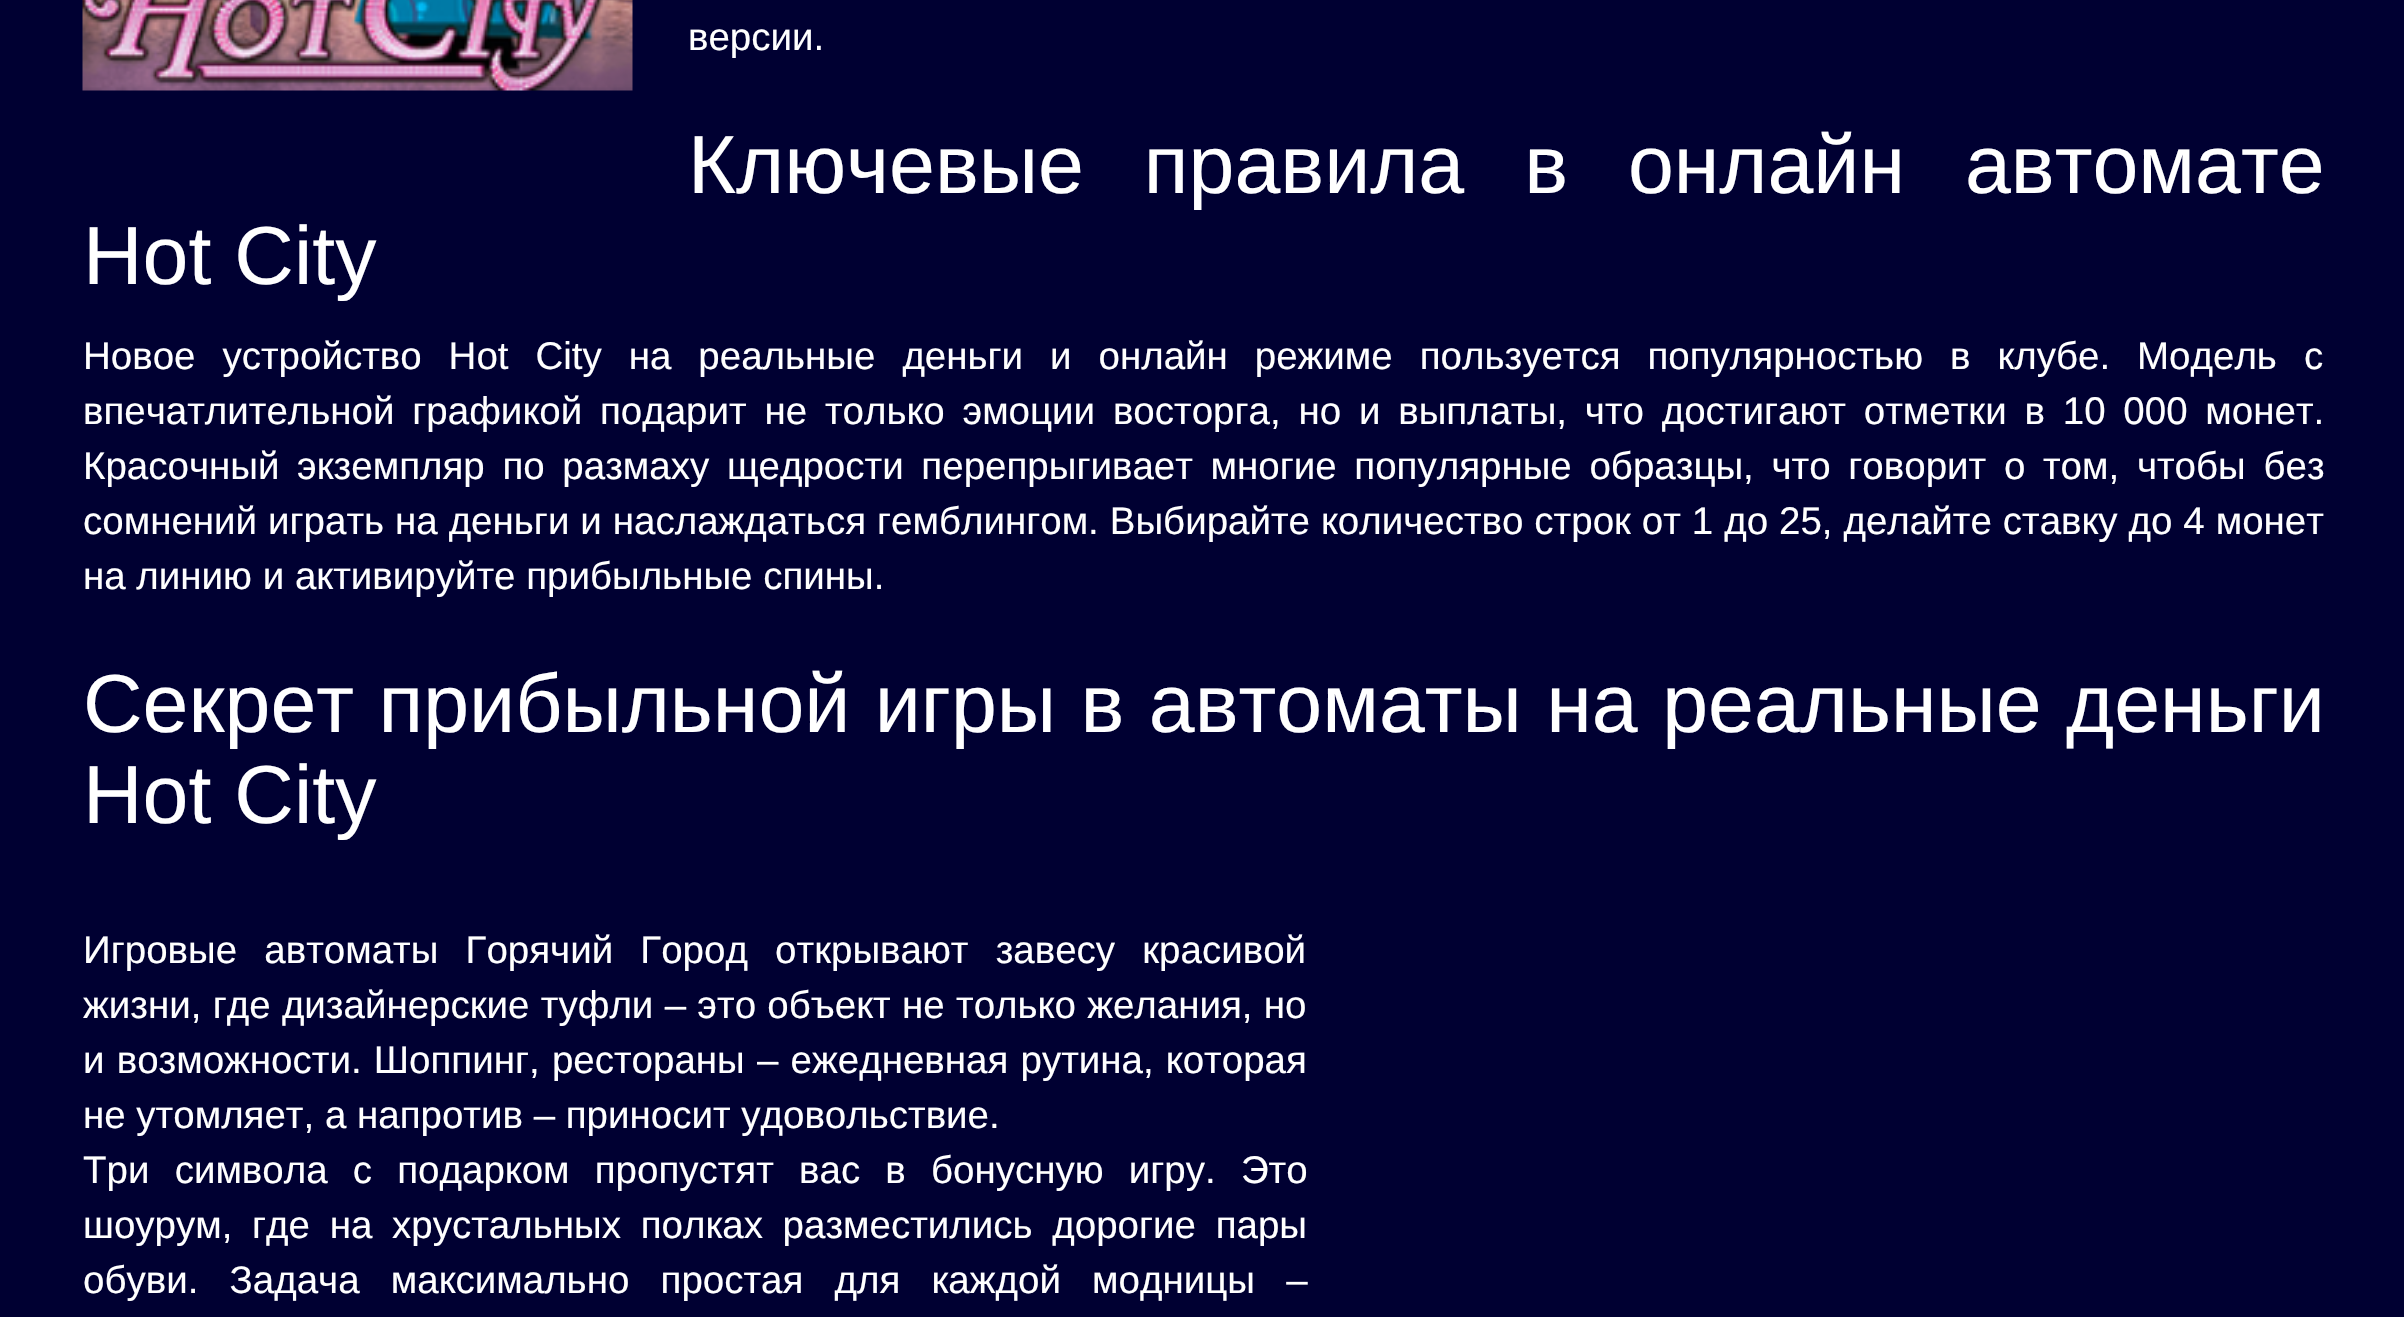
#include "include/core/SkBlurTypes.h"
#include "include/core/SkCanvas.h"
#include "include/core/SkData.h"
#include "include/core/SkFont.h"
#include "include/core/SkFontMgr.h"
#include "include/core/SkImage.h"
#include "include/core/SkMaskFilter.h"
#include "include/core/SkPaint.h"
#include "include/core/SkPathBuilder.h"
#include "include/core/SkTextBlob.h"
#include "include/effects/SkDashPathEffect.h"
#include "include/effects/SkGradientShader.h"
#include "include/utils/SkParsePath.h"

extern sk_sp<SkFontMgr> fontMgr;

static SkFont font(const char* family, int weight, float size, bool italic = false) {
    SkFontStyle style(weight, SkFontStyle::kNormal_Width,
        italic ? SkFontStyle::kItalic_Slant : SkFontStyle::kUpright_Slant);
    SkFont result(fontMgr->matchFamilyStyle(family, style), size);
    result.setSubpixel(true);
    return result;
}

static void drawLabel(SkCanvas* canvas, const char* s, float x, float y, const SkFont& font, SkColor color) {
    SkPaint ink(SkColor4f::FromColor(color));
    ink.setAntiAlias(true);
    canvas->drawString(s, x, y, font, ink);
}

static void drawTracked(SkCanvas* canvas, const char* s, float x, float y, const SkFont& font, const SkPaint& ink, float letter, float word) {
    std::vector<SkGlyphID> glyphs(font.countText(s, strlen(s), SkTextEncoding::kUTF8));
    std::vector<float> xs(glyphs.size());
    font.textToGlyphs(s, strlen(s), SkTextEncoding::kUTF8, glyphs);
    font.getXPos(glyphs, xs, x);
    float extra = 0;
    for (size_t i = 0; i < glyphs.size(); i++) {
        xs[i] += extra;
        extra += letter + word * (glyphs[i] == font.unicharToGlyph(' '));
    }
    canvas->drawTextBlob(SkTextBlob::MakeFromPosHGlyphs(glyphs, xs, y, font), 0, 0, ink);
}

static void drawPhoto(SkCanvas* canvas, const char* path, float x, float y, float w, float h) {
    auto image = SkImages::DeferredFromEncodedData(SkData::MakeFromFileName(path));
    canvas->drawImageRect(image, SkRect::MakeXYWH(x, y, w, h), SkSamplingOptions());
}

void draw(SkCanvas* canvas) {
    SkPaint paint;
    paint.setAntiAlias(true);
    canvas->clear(0xFF000032);
    drawPhoto(canvas, "assets/img1.png", 82, 0, 551, 91);
    SkFont font1 = font("Liberation Sans", 400, 38.5f);
    drawLabel(canvas, "версии.", 688, 50, font1, 0xFFFFFFFF);
    SkFont font2 = font("Liberation Sans", 400, 82.5f);
    paint.setColor(0xFFFFFFFF);
    drawTracked(canvas, "Ключевые правила в онлайн автомате", 688, 193, font2, paint, 0, 37);
    drawLabel(canvas, "Hot City", 83, 284, font2, 0xFFFFFFFF);
    drawTracked(canvas, "Новое устройство Hot City на реальные деньги и онлайн режиме пользуется популярностью в клубе. Модель с", 83, 369, font1, paint, 0, 16.25f);
    drawTracked(canvas, "впечатлительной графикой подарит не только эмоции восторга, но и выплаты, что достигают отметки в 10 000 монет.", 83, 424, font1, paint, 0, 7.1f);
    drawTracked(canvas, "Красочный экземпляр по размаху щедрости перепрыгивает многие популярные образцы, что говорит о том, чтобы без", 83, 479, font1, paint, 0, 7);
    drawTracked(canvas, "сомнений играть на деньги и наслаждаться гемблингом. Выбирайте количество строк от 1 до 25, делайте ставку до 4 монет", 83, 534, font1, paint, 0, 0.25f);
    drawLabel(canvas, "на линию и активируйте прибыльные спины.", 83, 589, font1, 0xFFFFFFFF);
    drawTracked(canvas, "Секрет прибыльной игры в автоматы на реальные деньги", 83, 732, font2, paint, 0, 1.5f);
    drawLabel(canvas, "Hot City", 83, 823, font2, 0xFFFFFFFF);
    drawTracked(canvas, "Игровые автоматы Горячий Город открывают завесу красивой", 83, 963, font1, paint, 0, 16.5f);
    drawTracked(canvas, "жизни, где дизайнерские туфли – это объект не только желания, но", 83, 1018, font1, paint, 0, 0.6f);
    drawTracked(canvas, "и возможности. Шоппинг, рестораны – ежедневная рутина, которая", 83, 1073, font1, paint, 0, 1.5f);
    drawLabel(canvas, "не утомляет, а напротив – приносит удовольствие.", 83, 1128, font1, 0xFFFFFFFF);
    drawTracked(canvas, "Три символа с подарком пропустят вас в бонусную игру. Это", 83, 1183, font1, paint, 0, 14.5f);
    drawTracked(canvas, "шоурум, где на хрустальных полках разместились дорогие пары", 83, 1238, font1, paint, 0, 9);
    drawTracked(canvas, "обуви. Задача максимально простая для каждой модницы –", 83, 1293, font1, paint, 0, 20.5f);
}
